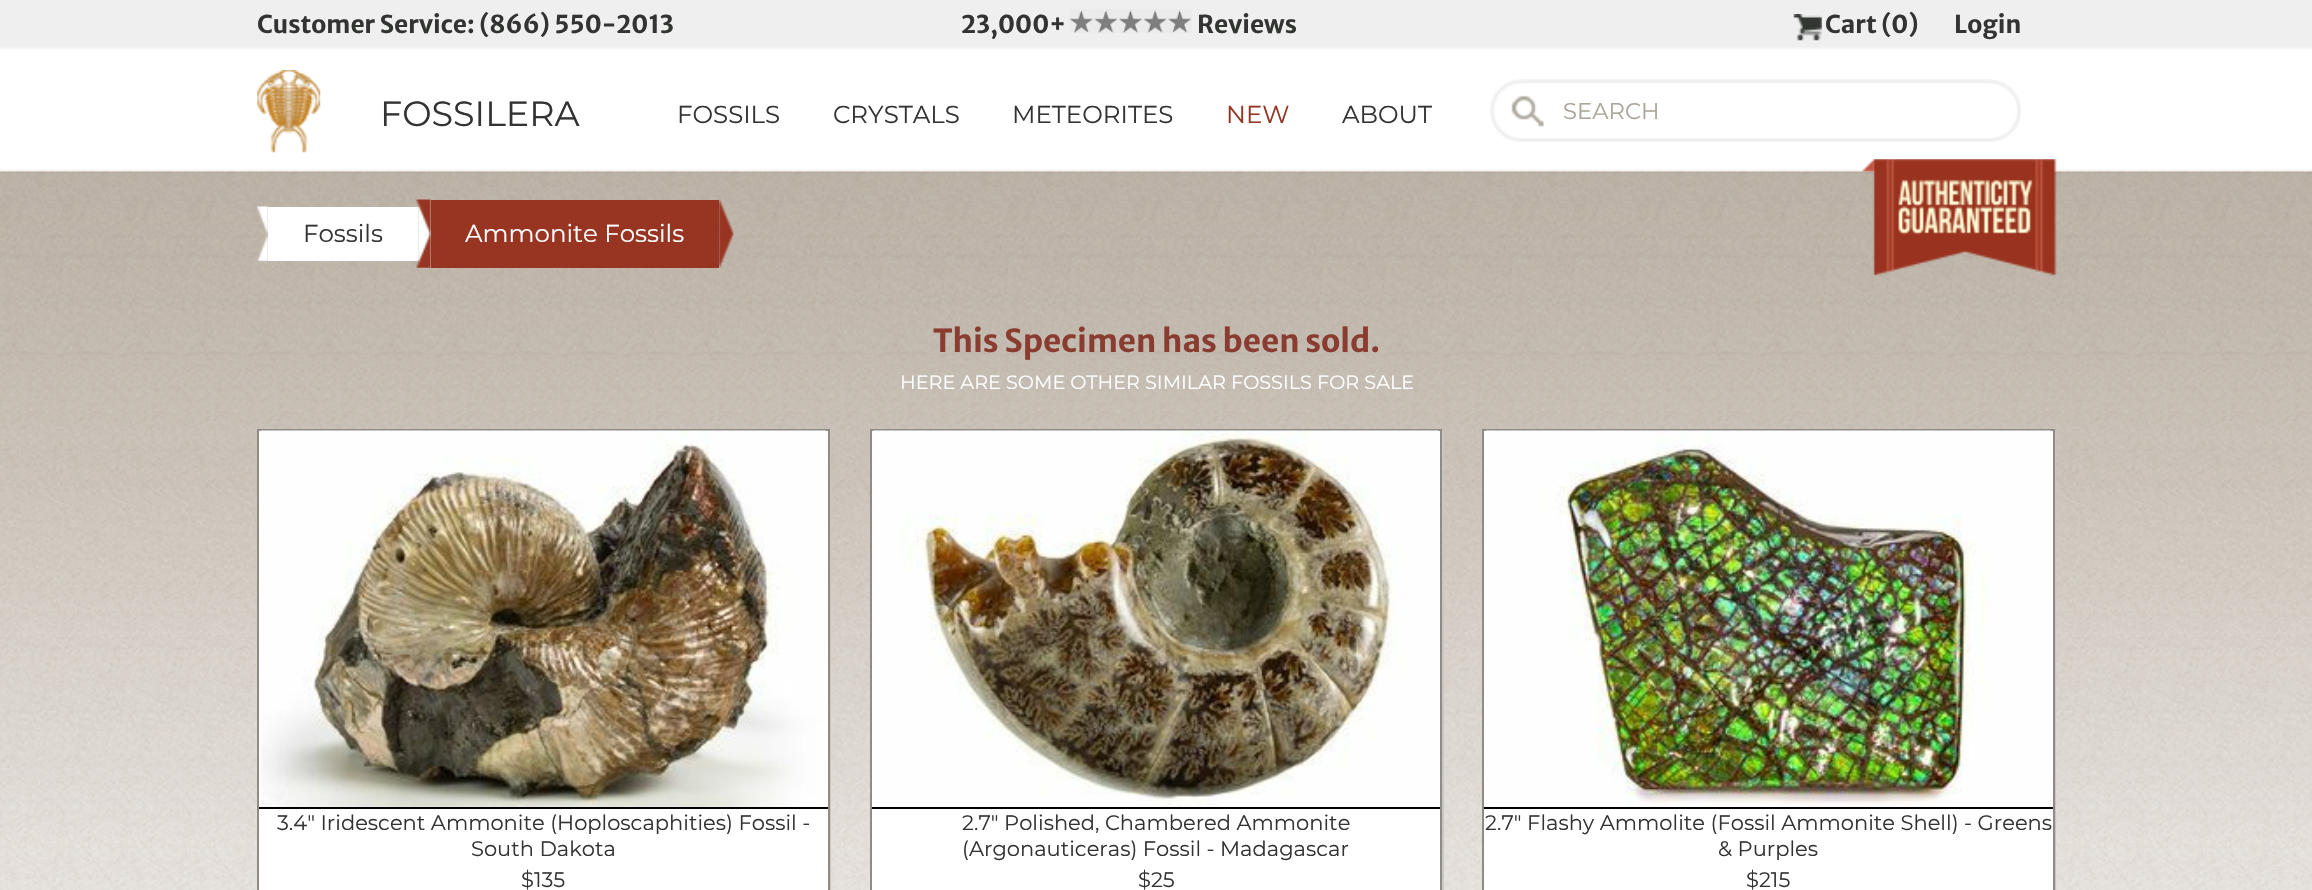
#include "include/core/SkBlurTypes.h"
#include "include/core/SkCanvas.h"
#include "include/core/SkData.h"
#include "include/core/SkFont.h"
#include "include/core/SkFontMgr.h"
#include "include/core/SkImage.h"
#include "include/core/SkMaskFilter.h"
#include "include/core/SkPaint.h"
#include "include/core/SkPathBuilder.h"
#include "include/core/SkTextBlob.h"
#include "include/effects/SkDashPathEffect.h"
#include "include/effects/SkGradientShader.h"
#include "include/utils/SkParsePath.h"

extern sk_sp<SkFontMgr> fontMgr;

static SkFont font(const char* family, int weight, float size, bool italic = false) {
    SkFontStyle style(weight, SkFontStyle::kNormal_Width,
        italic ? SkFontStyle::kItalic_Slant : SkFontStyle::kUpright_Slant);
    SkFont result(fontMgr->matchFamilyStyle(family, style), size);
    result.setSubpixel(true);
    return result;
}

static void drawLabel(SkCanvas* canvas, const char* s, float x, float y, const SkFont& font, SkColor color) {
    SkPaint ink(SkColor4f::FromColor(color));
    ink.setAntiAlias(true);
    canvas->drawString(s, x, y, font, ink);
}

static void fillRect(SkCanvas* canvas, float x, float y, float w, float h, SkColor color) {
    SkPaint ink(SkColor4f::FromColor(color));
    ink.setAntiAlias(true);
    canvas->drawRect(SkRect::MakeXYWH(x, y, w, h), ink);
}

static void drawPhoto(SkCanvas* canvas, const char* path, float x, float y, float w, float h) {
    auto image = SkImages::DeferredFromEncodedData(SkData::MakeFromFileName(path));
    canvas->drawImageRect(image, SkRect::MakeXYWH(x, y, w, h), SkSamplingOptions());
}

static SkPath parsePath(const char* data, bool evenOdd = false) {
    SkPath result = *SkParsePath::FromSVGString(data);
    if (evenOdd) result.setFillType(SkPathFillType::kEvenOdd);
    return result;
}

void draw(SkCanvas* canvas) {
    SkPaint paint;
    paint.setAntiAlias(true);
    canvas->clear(0xFFFFFFFF);
    drawPhoto(canvas, "assets/img1.png", 0, 0, 2312, 890);
    SkFont font1 = font("Merriweather Sans", 700, 24.5f);
    drawLabel(canvas, "Customer Service: (866) 550-2013", 257, 33, font1, 0xFF323432);
    drawLabel(canvas, "23,000+", 961, 33, font1, 0xFF323432);
    drawPhoto(canvas, "assets/img2.png", 1069, 9, 123, 25);
    drawLabel(canvas, "Reviews", 1197, 33, font1, 0xFF323432);
    drawPhoto(canvas, "assets/img3.png", 1793, 14, 29, 27);
    drawLabel(canvas, "Cart (0)", 1825, 33, font1, 0xFF323432);
    drawLabel(canvas, "Login", 1954, 33, font1, 0xFF323432);
    drawPhoto(canvas, "assets/img4.png", 257, 70, 64, 83);
    SkFont font2 = font("Montserrat", 400, 35);
    drawLabel(canvas, "FOSSILERA", 380, 126, font2, 0xFF323432);
    SkFont font3 = font("Montserrat", 400, 24.5f);
    drawLabel(canvas, "FOSSILS", 677, 123, font3, 0xFF323432);
    drawLabel(canvas, "CRYSTALS", 833, 123, font3, 0xFF323432);
    drawLabel(canvas, "METEORITES", 1012, 123, font3, 0xFF323432);
    drawLabel(canvas, "NEW", 1226, 123, font3, 0xFF973422);
    drawLabel(canvas, "ABOUT", 1342, 123, font3, 0xFF323432);
    drawPhoto(canvas, "assets/img5.png", 1489, 79, 532, 63);
    SkFont font4 = font("Montserrat", 400, 22.75f);
    drawLabel(canvas, "SEARCH", 1563, 119, font4, 0xFFABA69B);
    drawPhoto(canvas, "assets/img6.png", 1862, 159, 195, 117);
    drawPhoto(canvas, "assets/img7.png", 257, 206, 11, 55);
    fillRect(canvas, 268, 207, 150, 54, 0xFFFFFFFF);
    drawLabel(canvas, "Fossils", 303, 242, font3, 0xFF323432);
    drawPhoto(canvas, "assets/img8.png", 418, 206, 11, 55);
    drawPhoto(canvas, "assets/img9.png", 416, 199, 15, 69);
    fillRect(canvas, 431, 200, 288, 68, 0xFF973422);
    drawLabel(canvas, "Ammonite Fossils", 465, 242, font3, 0xFFFFFFFF);
    drawPhoto(canvas, "assets/img10.png", 719, 199, 15, 69);
    SkFont font5 = font("Merriweather Sans", 700, 31.5f);
    drawLabel(canvas, "This Specimen has been sold.", 933, 352, font5, 0xFF893C2F);
    SkFont font6 = font("Montserrat", 400, 19.25f);
    drawLabel(canvas, "HERE ARE SOME OTHER SIMILAR FOSSILS FOR SALE", 900, 389, font6, 0xFFFFFFFF);
    paint.setColor(0xFFCAC6C3);
    canvas->drawPath(parsePath("M259 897C260 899 262 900 264 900H826C829 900 831 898 831 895V431H830V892C830 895 827 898 824 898H262C261 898 260 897 259 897Z"), paint);
    paint.setColor(0xFFFFFFFF);
    canvas->drawRect(SkRect::MakeXYWH(258, 430, 571, 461), paint);
    paint.setStroke(true);
    paint.setStrokeWidth(2);
    paint.setColor(0xFF918B86);
    canvas->drawRect(SkRect::MakeXYWH(258, 430, 571, 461), paint);
    drawPhoto(canvas, "assets/img11.png", 260, 430, 566, 377);
    fillRect(canvas, 259, 807, 569, 2, 0xFF000000);
    SkFont font7 = font("Montserrat", 400, 21);
    drawLabel(canvas, "3.4\" Iridescent Ammonite (Hoploscaphities) Fossil -", 277, 830, font7, 0xFF323432);
    drawLabel(canvas, "South Dakota", 471, 856, font7, 0xFF323432);
    drawLabel(canvas, "$135", 521, 887, font7, 0xFF323432);
    paint.setStroke(false);
    paint.setColor(0xFFCAC6C3);
    canvas->drawPath(parsePath("M872 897C873 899 875 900 877 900H1439C1442 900 1444 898 1444 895V431H1442V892C1442 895 1440 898 1437 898H875Z"), paint);
    paint.setColor(0xFFFFFFFF);
    canvas->drawRect(SkRect::MakeXYWH(871, 430, 570, 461), paint);
    paint.setStroke(true);
    paint.setColor(0xFF918B86);
    canvas->drawRect(SkRect::MakeXYWH(871, 430, 570, 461), paint);
    drawPhoto(canvas, "assets/img12.png", 873, 430, 566, 377);
    fillRect(canvas, 872, 807, 568, 2, 0xFF000000);
    drawLabel(canvas, "2.7\" Polished, Chambered Ammonite", 962, 830, font7, 0xFF323432);
    drawLabel(canvas, "(Argonauticeras) Fossil - Madagascar", 962, 856, font7, 0xFF323432);
    drawLabel(canvas, "$25", 1138, 887, font7, 0xFF323432);
    paint.setStroke(false);
    paint.setColor(0xFFCAC6C3);
    canvas->drawPath(parsePath("M1484 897C1485 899 1487 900 1489 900H2051C2054 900 2056 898 2056 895V431H2054V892C2054 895 2052 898 2049 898H1488C1486 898 1485 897 1484 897Z"), paint);
    paint.setColor(0xFFFFFFFF);
    canvas->drawRect(SkRect::MakeXYWH(1483, 430, 571, 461), paint);
    paint.setStroke(true);
    paint.setColor(0xFF918B86);
    canvas->drawRect(SkRect::MakeXYWH(1483, 430, 571, 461), paint);
    drawPhoto(canvas, "assets/img13.png", 1485, 430, 566, 377);
    fillRect(canvas, 1484, 807, 569, 2, 0xFF000000);
    drawLabel(canvas, "2.7\" Flashy Ammolite (Fossil Ammonite Shell) - Greens", 1485, 830, font7, 0xFF323432);
    drawLabel(canvas, "& Purples", 1718, 856, font7, 0xFF323432);
    drawLabel(canvas, "$215", 1746, 887, font7, 0xFF323432);
}
